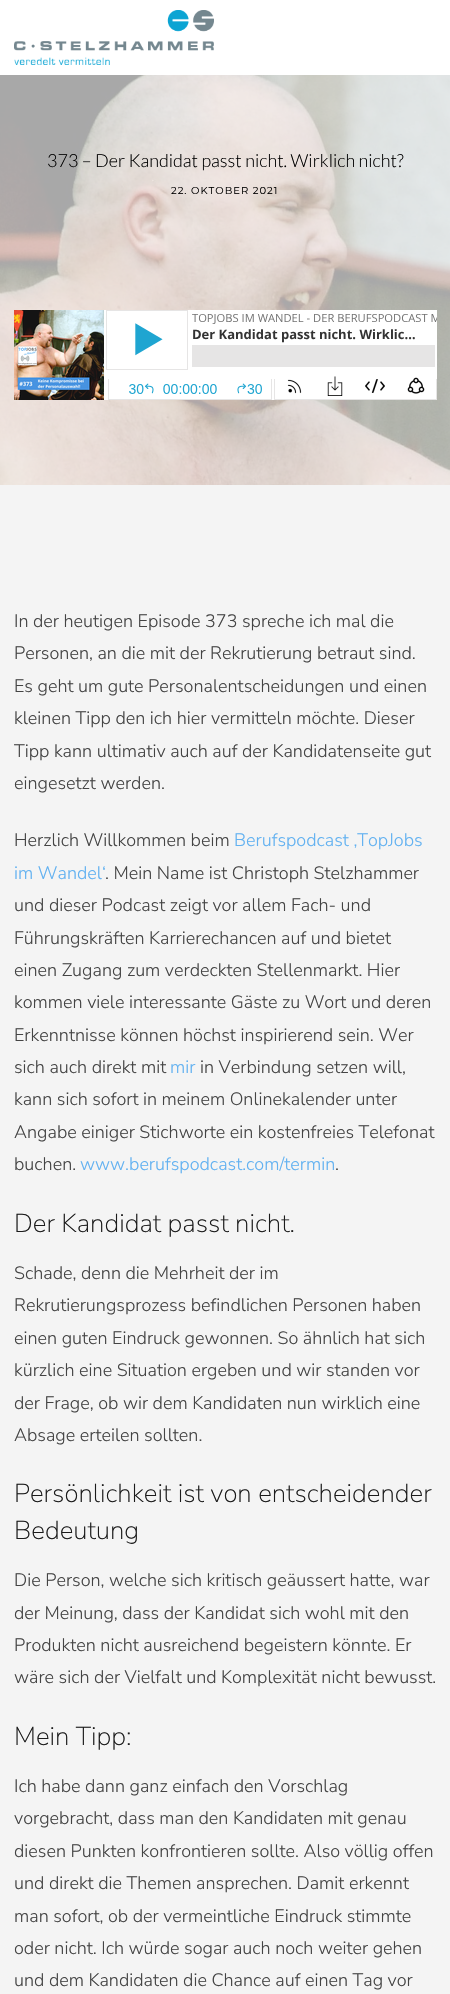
#include "include/core/SkBlurTypes.h"
#include "include/core/SkCanvas.h"
#include "include/core/SkData.h"
#include "include/core/SkFont.h"
#include "include/core/SkFontMgr.h"
#include "include/core/SkImage.h"
#include "include/core/SkMaskFilter.h"
#include "include/core/SkPaint.h"
#include "include/core/SkPathBuilder.h"
#include "include/core/SkTextBlob.h"
#include "include/effects/SkDashPathEffect.h"
#include "include/effects/SkGradientShader.h"
#include "include/utils/SkParsePath.h"

extern sk_sp<SkFontMgr> fontMgr;

static SkFont font(const char* family, int weight, float size, bool italic = false) {
    SkFontStyle style(weight, SkFontStyle::kNormal_Width,
        italic ? SkFontStyle::kItalic_Slant : SkFontStyle::kUpright_Slant);
    SkFont result(fontMgr->matchFamilyStyle(family, style), size);
    result.setSubpixel(true);
    return result;
}

static void drawLabel(SkCanvas* canvas, const char* s, float x, float y, const SkFont& font, SkColor color) {
    SkPaint ink(SkColor4f::FromColor(color));
    ink.setAntiAlias(true);
    canvas->drawString(s, x, y, font, ink);
}

static void drawTracked(SkCanvas* canvas, const char* s, float x, float y, const SkFont& font, const SkPaint& ink, float letter, float word) {
    std::vector<SkGlyphID> glyphs(font.countText(s, strlen(s), SkTextEncoding::kUTF8));
    std::vector<float> xs(glyphs.size());
    font.textToGlyphs(s, strlen(s), SkTextEncoding::kUTF8, glyphs);
    font.getXPos(glyphs, xs, x);
    float extra = 0;
    for (size_t i = 0; i < glyphs.size(); i++) {
        xs[i] += extra;
        extra += letter + word * (glyphs[i] == font.unicharToGlyph(' '));
    }
    canvas->drawTextBlob(SkTextBlob::MakeFromPosHGlyphs(glyphs, xs, y, font), 0, 0, ink);
}

static void fillRect(SkCanvas* canvas, float x, float y, float w, float h, SkColor color) {
    SkPaint ink(SkColor4f::FromColor(color));
    ink.setAntiAlias(true);
    canvas->drawRect(SkRect::MakeXYWH(x, y, w, h), ink);
}

static void drawPhoto(SkCanvas* canvas, const char* path, float x, float y, float w, float h) {
    auto image = SkImages::DeferredFromEncodedData(SkData::MakeFromFileName(path));
    canvas->drawImageRect(image, SkRect::MakeXYWH(x, y, w, h), SkSamplingOptions());
}

void draw(SkCanvas* canvas) {
    SkPaint paint;
    paint.setAntiAlias(true);
    canvas->clear(0xFFF4F4F4);
    fillRect(canvas, 0, 0, 450, 75, 0xFFFFFFFF);
    drawPhoto(canvas, "assets/img1.png", 14, 10, 200, 55);
    drawPhoto(canvas, "assets/img2.png", 0, 75, 450, 410);
    SkFont font1 = font("Lato", 300, 18);
    drawLabel(canvas, "373 – Der Kandidat passt nicht. Wirklich nicht?", 47, 167, font1, 0xFF000000);
    SkFont font2 = font("Montserrat", 400, 10);
    paint.setColor(0xFF000000);
    drawTracked(canvas, "22. OKTOBER 2021", 171, 194, font2, paint, 1, 0);
    drawPhoto(canvas, "assets/img3.png", 14, 310, 423, 90);
    SkFont font3 = font("Nunito Sans", 300, 18);
    drawLabel(canvas, "In der heutigen Episode 373 spreche ich mal die", 14, 627, font3, 0xFF444444);
    drawLabel(canvas, "Personen, an die mit der Rekrutierung betraut sind.", 14, 659, font3, 0xFF444444);
    drawLabel(canvas, "Es geht um gute Personalentscheidungen und einen", 14, 692, font3, 0xFF444444);
    drawLabel(canvas, "kleinen Tipp den ich hier vermitteln möchte. Dieser", 14, 724, font3, 0xFF444444);
    drawLabel(canvas, "Tipp kann ultimativ auch auf der Kandidatenseite gut", 14, 757, font3, 0xFF444444);
    drawLabel(canvas, "eingesetzt werden.", 14, 789, font3, 0xFF444444);
    drawLabel(canvas, "Herzlich Willkommen beim", 14, 846, font3, 0xFF444444);
    drawLabel(canvas, "Berufspodcast ‚TopJobs", 234, 846, font3, 0xFF61B1F1);
    drawLabel(canvas, "im Wandel‘", 14, 879, font3, 0xFF61B1F1);
    drawLabel(canvas, ". Mein Name ist Christoph Stelzhammer", 105, 879, font3, 0xFF444444);
    drawLabel(canvas, "und dieser Podcast zeigt vor allem Fach- und", 14, 911, font3, 0xFF444444);
    drawLabel(canvas, "Führungskräften Karrierechancen auf und bietet", 14, 944, font3, 0xFF444444);
    drawLabel(canvas, "einen Zugang zum verdeckten Stellenmarkt. Hier", 14, 976, font3, 0xFF444444);
    drawLabel(canvas, "kommen viele interessante Gäste zu Wort und deren", 14, 1008, font3, 0xFF444444);
    drawLabel(canvas, "Erkenntnisse können höchst inspirierend sein. Wer", 14, 1041, font3, 0xFF444444);
    drawLabel(canvas, "sich auch direkt mit", 14, 1073, font3, 0xFF444444);
    drawLabel(canvas, "mir", 170, 1073, font3, 0xFF61B1F1);
    drawLabel(canvas, "in Verbindung setzen will,", 200, 1073, font3, 0xFF444444);
    drawLabel(canvas, "kann sich sofort in meinem Onlinekalender unter", 14, 1105, font3, 0xFF444444);
    drawLabel(canvas, "Angabe einiger Stichworte ein kostenfreies Telefonat", 14, 1138, font3, 0xFF444444);
    drawLabel(canvas, "buchen.", 14, 1170, font3, 0xFF444444);
    drawLabel(canvas, "www.berufspodcast.com/termin", 80, 1170, font3, 0xFF61B1F1);
    drawLabel(canvas, ".", 335, 1170, font3, 0xFF444444);
    SkFont font4 = font("Nunito Sans", 200, 26);
    drawLabel(canvas, "Der Kandidat passt nicht.", 14, 1232, font4, 0xFF1B1B1B);
    drawLabel(canvas, "Schade, denn die Mehrheit der im", 14, 1279, font3, 0xFF444444);
    drawLabel(canvas, "Rekrutierungsprozess befindlichen Personen haben", 14, 1311, font3, 0xFF444444);
    drawLabel(canvas, "einen guten Eindruck gewonnen. So ähnlich hat sich", 14, 1344, font3, 0xFF444444);
    drawLabel(canvas, "kürzlich eine Situation ergeben und wir standen vor", 14, 1376, font3, 0xFF444444);
    drawLabel(canvas, "der Frage, ob wir dem Kandidaten nun wirklich eine", 14, 1409, font3, 0xFF444444);
    drawLabel(canvas, "Absage erteilen sollten.", 14, 1441, font3, 0xFF444444);
    drawLabel(canvas, "Persönlichkeit ist von entscheidender", 14, 1502, font4, 0xFF1B1B1B);
    drawLabel(canvas, "Bedeutung", 14, 1539, font4, 0xFF1B1B1B);
    drawLabel(canvas, "Die Person, welche sich kritisch geäussert hatte, war", 14, 1586, font3, 0xFF444444);
    drawLabel(canvas, "der Meinung, dass der Kandidat sich wohl mit den", 14, 1619, font3, 0xFF444444);
    drawLabel(canvas, "Produkten nicht ausreichend begeistern könnte. Er", 14, 1651, font3, 0xFF444444);
    drawLabel(canvas, "wäre sich der Vielfalt und Komplexität nicht bewusst.", 14, 1683, font3, 0xFF444444);
    drawLabel(canvas, "Mein Tipp:", 14, 1745, font4, 0xFF1B1B1B);
    drawLabel(canvas, "Ich habe dann ganz einfach den Vorschlag", 14, 1792, font3, 0xFF444444);
    drawLabel(canvas, "vorgebracht, dass man den Kandidaten mit genau", 14, 1824, font3, 0xFF444444);
    drawLabel(canvas, "diesen Punkten konfrontieren sollte. Also völlig offen", 14, 1857, font3, 0xFF444444);
    drawLabel(canvas, "und direkt die Themen ansprechen. Damit erkennt", 14, 1889, font3, 0xFF444444);
    drawLabel(canvas, "man sofort, ob der vermeintliche Eindruck stimmte", 14, 1922, font3, 0xFF444444);
    drawLabel(canvas, "oder nicht. Ich würde sogar auch noch weiter gehen", 14, 1954, font3, 0xFF444444);
    drawLabel(canvas, "und dem Kandidaten die Chance auf einen Tag vor", 14, 1986, font3, 0xFF444444);
}
